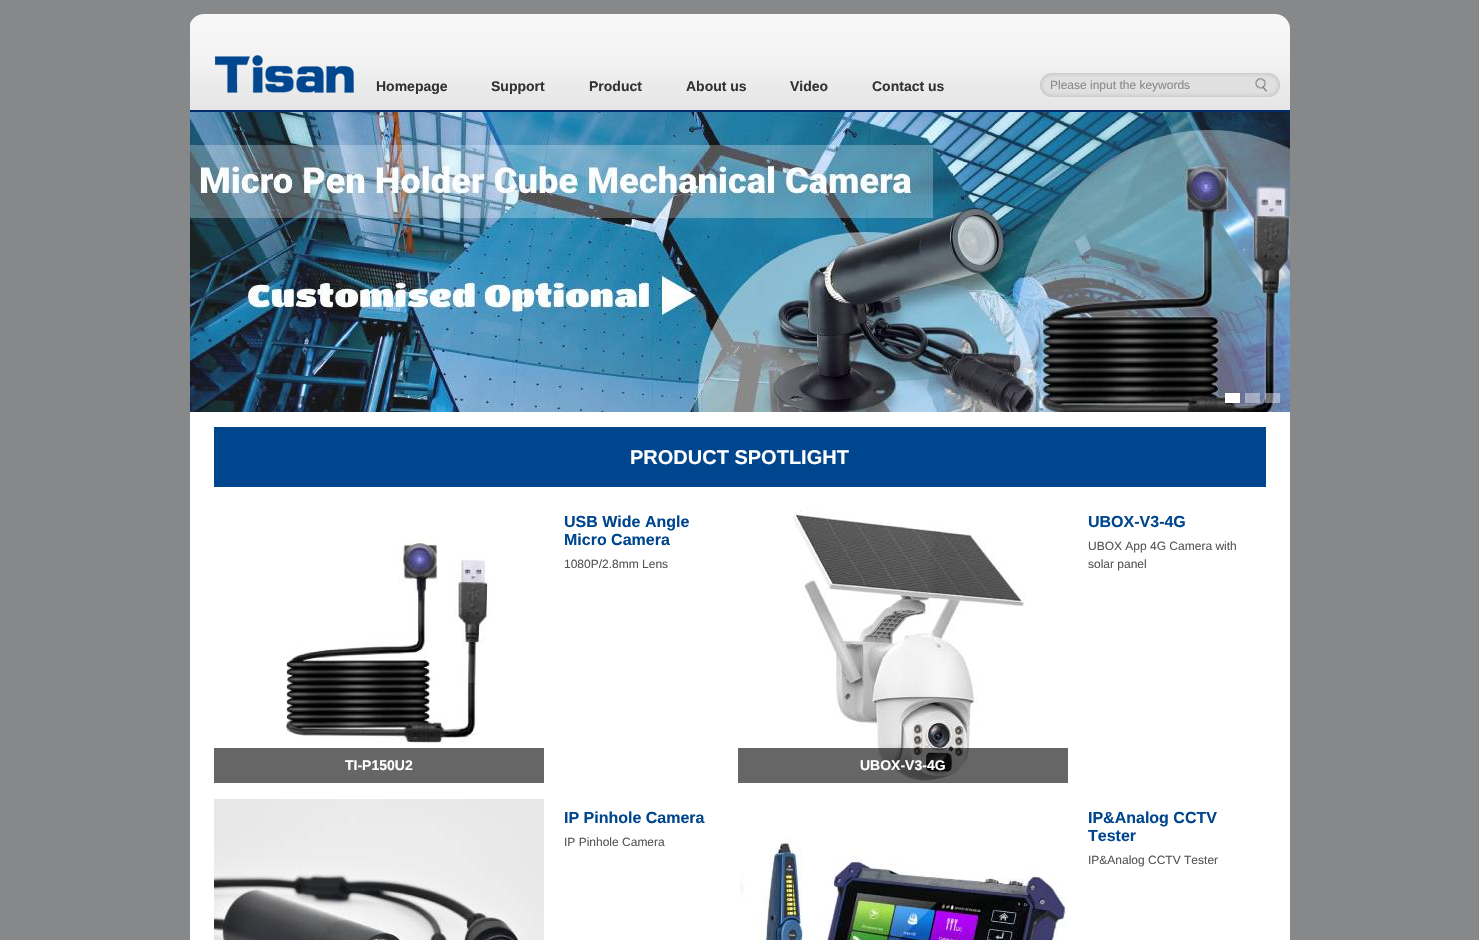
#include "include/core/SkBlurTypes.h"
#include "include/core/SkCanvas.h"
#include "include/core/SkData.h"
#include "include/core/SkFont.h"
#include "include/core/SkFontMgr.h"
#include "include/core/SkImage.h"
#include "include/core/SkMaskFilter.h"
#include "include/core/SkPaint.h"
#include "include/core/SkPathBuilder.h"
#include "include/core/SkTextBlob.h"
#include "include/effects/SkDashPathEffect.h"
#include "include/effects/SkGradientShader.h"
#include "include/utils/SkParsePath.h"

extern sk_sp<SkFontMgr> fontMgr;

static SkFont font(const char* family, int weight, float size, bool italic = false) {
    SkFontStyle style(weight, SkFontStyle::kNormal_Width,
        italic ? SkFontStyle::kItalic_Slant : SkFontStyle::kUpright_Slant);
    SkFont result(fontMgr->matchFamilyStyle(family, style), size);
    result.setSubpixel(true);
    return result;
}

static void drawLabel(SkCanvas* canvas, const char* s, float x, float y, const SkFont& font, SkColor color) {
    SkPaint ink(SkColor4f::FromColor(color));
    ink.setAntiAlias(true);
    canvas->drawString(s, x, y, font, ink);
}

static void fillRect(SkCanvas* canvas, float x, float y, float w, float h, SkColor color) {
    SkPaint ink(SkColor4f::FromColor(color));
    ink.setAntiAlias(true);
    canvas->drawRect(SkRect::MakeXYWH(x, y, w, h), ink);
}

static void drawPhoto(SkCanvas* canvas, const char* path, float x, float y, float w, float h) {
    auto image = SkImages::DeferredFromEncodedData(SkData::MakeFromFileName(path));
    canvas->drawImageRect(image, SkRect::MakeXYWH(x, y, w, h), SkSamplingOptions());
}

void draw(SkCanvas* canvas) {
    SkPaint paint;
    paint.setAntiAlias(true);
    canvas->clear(0xFF87888A);
    drawPhoto(canvas, "assets/img1.png", 190, 14, 1100, 96);
    fillRect(canvas, 190, 110, 1100, 2, 0xFF002D6C);
    drawPhoto(canvas, "assets/img2.png", 215, 55, 139, 38);
    SkFont font1 = font("Liberation Sans", 700, 14);
    drawLabel(canvas, "Homepage", 376, 91, font1, 0xFF333333);
    drawLabel(canvas, "Support", 491, 91, font1, 0xFF333333);
    drawLabel(canvas, "Product", 589, 91, font1, 0xFF333333);
    drawLabel(canvas, "About us", 686, 91, font1, 0xFF333333);
    drawLabel(canvas, "Video", 790, 91, font1, 0xFF333333);
    drawLabel(canvas, "Contact us", 872, 91, font1, 0xFF333333);
    drawPhoto(canvas, "assets/img3.png", 1040, 73, 214, 24);
    SkFont font2 = font("Liberation Sans", 400, 12);
    drawLabel(canvas, "Please input the keywords", 1050, 89, font2, 0xFF898989);
    drawPhoto(canvas, "assets/img4.png", 1254, 73, 26, 24);
    drawPhoto(canvas, "assets/img5.png", 190, 112, 1100, 300);
    fillRect(canvas, 1225, 393, 15, 10, 0xFFFFFFFF);
    fillRect(canvas, 1245, 393, 15, 10, 0x66FFFFFF);
    fillRect(canvas, 1265, 393, 15, 10, 0x66FFFFFF);
    fillRect(canvas, 190, 412, 1100, 528, 0xFFFFFFFF);
    fillRect(canvas, 214, 427, 1052, 60, 0xFF00468E);
    SkFont font3 = font("Liberation Sans", 700, 20);
    drawLabel(canvas, "PRODUCT SPOTLIGHT", 630, 464, font3, 0xFFFFFFFF);
    SkFont font4 = font("Liberation Sans", 700, 16);
    drawLabel(canvas, "USB Wide Angle", 564, 527, font4, 0xFF00468E);
    drawLabel(canvas, "Micro Camera", 564, 545, font4, 0xFF00468E);
    drawLabel(canvas, "1080P/2.8mm Lens", 564, 568, font2, 0xFF555555);
    drawPhoto(canvas, "assets/img6.png", 286, 535, 208, 208);
    fillRect(canvas, 214, 748, 330, 35, 0xFF666666);
    drawLabel(canvas, "TI-P150U2", 345, 770, font1, 0xFFFFFFFF);
    drawLabel(canvas, "UBOX-V3-4G", 1088, 527, font4, 0xFF00468E);
    drawLabel(canvas, "UBOX App 4G Camera with", 1088, 550, font2, 0xFF555555);
    drawLabel(canvas, "solar panel", 1088, 568, font2, 0xFF555555);
    drawPhoto(canvas, "assets/img7.png", 792, 511, 234, 272);
    fillRect(canvas, 738, 748, 330, 35, 0x99000000);
    drawLabel(canvas, "UBOX-V3-4G", 860, 770, font1, 0xFFFFFFFF);
    drawPhoto(canvas, "assets/img8.png", 214, 799, 330, 141);
    drawLabel(canvas, "IP Pinhole Camera", 564, 823, font4, 0xFF00468E);
    drawLabel(canvas, "IP Pinhole Camera", 564, 846, font2, 0xFF555555);
    drawPhoto(canvas, "assets/img9.png", 740, 839, 328, 101);
    drawLabel(canvas, "IP&Analog CCTV", 1088, 823, font4, 0xFF00468E);
    drawLabel(canvas, "Tester", 1088, 841, font4, 0xFF00468E);
    drawLabel(canvas, "IP&Analog CCTV Tester", 1088, 864, font2, 0xFF555555);
}
